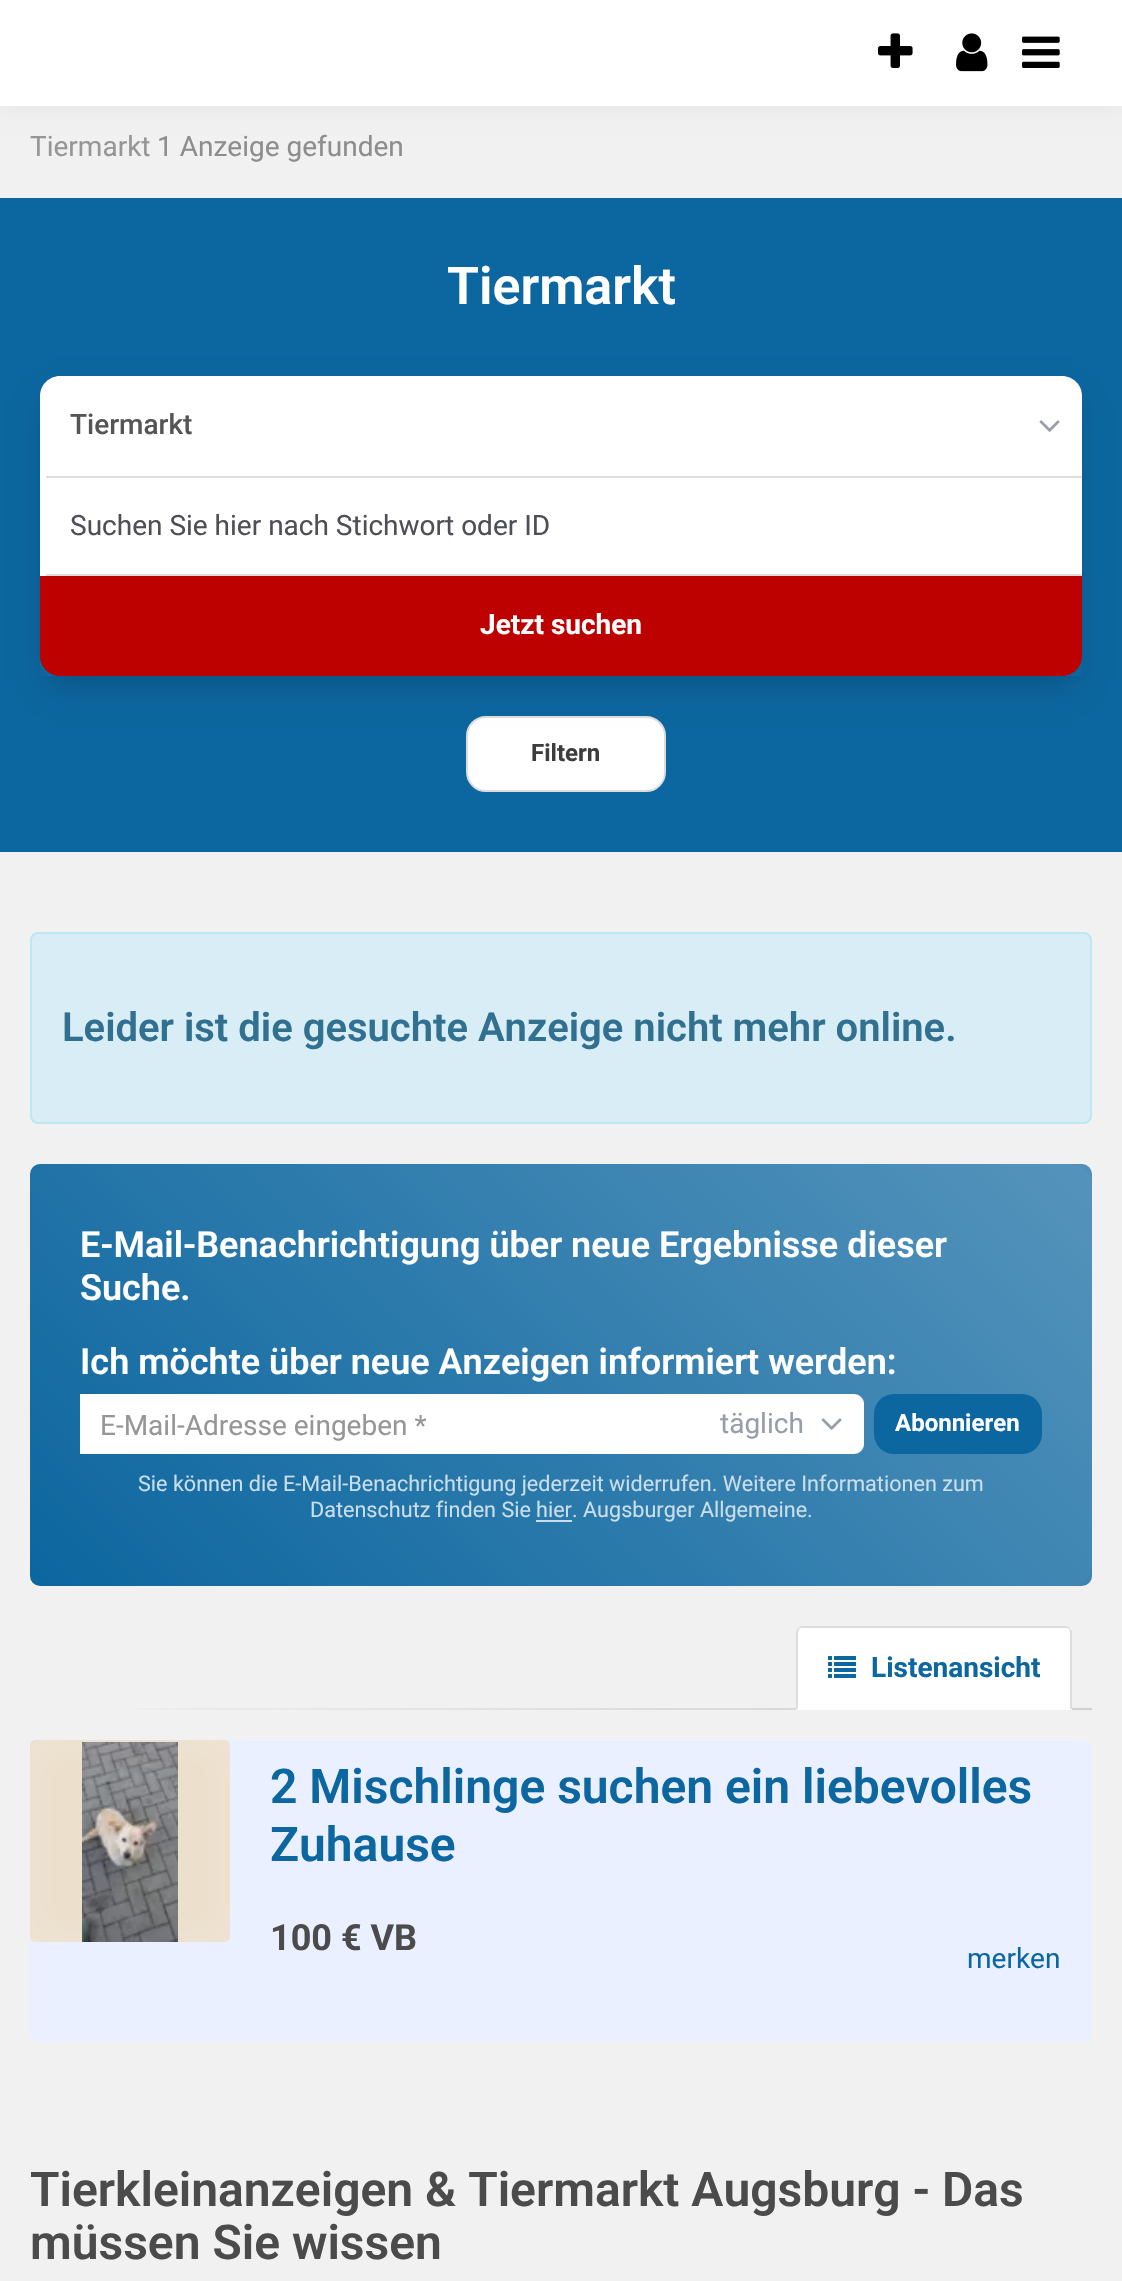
#include "include/core/SkBlurTypes.h"
#include "include/core/SkCanvas.h"
#include "include/core/SkData.h"
#include "include/core/SkFont.h"
#include "include/core/SkFontMgr.h"
#include "include/core/SkImage.h"
#include "include/core/SkMaskFilter.h"
#include "include/core/SkPaint.h"
#include "include/core/SkPathBuilder.h"
#include "include/core/SkTextBlob.h"
#include "include/effects/SkDashPathEffect.h"
#include "include/effects/SkGradientShader.h"
#include "include/utils/SkParsePath.h"

extern sk_sp<SkFontMgr> fontMgr;

static SkFont font(const char* family, int weight, float size, bool italic = false) {
    SkFontStyle style(weight, SkFontStyle::kNormal_Width,
        italic ? SkFontStyle::kItalic_Slant : SkFontStyle::kUpright_Slant);
    SkFont result(fontMgr->matchFamilyStyle(family, style), size);
    result.setSubpixel(true);
    return result;
}

static void drawLabel(SkCanvas* canvas, const char* s, float x, float y, const SkFont& font, SkColor color) {
    SkPaint ink(SkColor4f::FromColor(color));
    ink.setAntiAlias(true);
    canvas->drawString(s, x, y, font, ink);
}

static void fillRect(SkCanvas* canvas, float x, float y, float w, float h, SkColor color) {
    SkPaint ink(SkColor4f::FromColor(color));
    ink.setAntiAlias(true);
    canvas->drawRect(SkRect::MakeXYWH(x, y, w, h), ink);
}

static void fillRRect(SkCanvas* canvas, float x, float y, float w, float h, float radius, SkColor color) {
    SkPaint ink(SkColor4f::FromColor(color));
    ink.setAntiAlias(true);
    canvas->drawRoundRect(SkRect::MakeXYWH(x, y, w, h), radius, radius, ink);
}

static void drawPhoto(SkCanvas* canvas, const char* path, float x, float y, float w, float h) {
    auto image = SkImages::DeferredFromEncodedData(SkData::MakeFromFileName(path));
    canvas->drawImageRect(image, SkRect::MakeXYWH(x, y, w, h), SkSamplingOptions());
}

static SkPath parsePath(const char* data, bool evenOdd = false) {
    SkPath result = *SkParsePath::FromSVGString(data);
    if (evenOdd) result.setFillType(SkPathFillType::kEvenOdd);
    return result;
}

void draw(SkCanvas* canvas) {
    SkPaint paint;
    paint.setAntiAlias(true);
    canvas->clear(0xFFF1F1F1);
    paint.setColor(0x0D000000);
    paint.setMaskFilter(SkMaskFilter::MakeBlur(kNormal_SkBlurStyle, 10));
    canvas->drawRect(SkRect::MakeXYWH(0, 0, 1122, 106), paint);
    paint.setMaskFilter(nullptr);
    fillRect(canvas, 0, 0, 1122, 106, 0xFFFFFFFF);
    drawPhoto(canvas, "assets/img1.png", 878, 33, 35, 35);
    drawPhoto(canvas, "assets/img2.png", 956, 33, 32, 39);
    drawPhoto(canvas, "assets/img3.png", 1022, 36, 38, 32);
    SkFont font1 = font("Roboto", 400, 28);
    drawLabel(canvas, "Tiermarkt", 30, 156, font1, 0xFF969696);
    drawLabel(canvas, "1 Anzeige gefunden", 157, 156, font1, 0xFF8D8D8D);
    fillRect(canvas, 0, 198, 1122, 654, 0xFF0C669F);
    SkFont font2 = font("Roboto", 600, 52);
    drawLabel(canvas, "Tiermarkt", 447, 304, font2, 0xFFFFFFFF);
    paint.setColor(0xFFFFFFFF);
    canvas->drawRoundRect(SkRect::MakeXYWH(467, 717, 198, 74), 19, 19, paint);
    paint.setStroke(true);
    paint.setStrokeWidth(2);
    paint.setColor(0xFFDDDDDD);
    canvas->drawRoundRect(SkRect::MakeXYWH(467, 717, 198, 74), 19, 19, paint);
    canvas->save();
    canvas->clipPath(parsePath("M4 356H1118V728H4ZM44 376H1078C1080 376 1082 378 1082 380V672C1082 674 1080 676 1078 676H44C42 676 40 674 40 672V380C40 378 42 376 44 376Z", true), true);
    paint.setStroke(false);
    paint.setColor(0x33000000);
    paint.setMaskFilter(SkMaskFilter::MakeBlur(kNormal_SkBlurStyle, 15));
    canvas->drawRect(SkRect::MakeXYWH(50, 402, 1022, 280), paint);
    paint.setMaskFilter(nullptr);
    canvas->restore();
    paint.setColor(0xFFFFFFFF);
    canvas->drawPath(parsePath("M60 376H1062C1073 376 1082 385 1082 396V476H40V396C40 385 49 376 60 376Z"), paint);
    SkFont font3 = font("Roboto", 500, 28);
    drawLabel(canvas, "Tiermarkt", 70, 434, font3, 0xFF555555);
    drawPhoto(canvas, "assets/img4.png", 1039, 420, 21, 12);
    fillRect(canvas, 40, 476, 1042, 100, 0xFFFFFFFF);
    fillRect(canvas, 46, 476, 1036, 2, 0xFFDDDDDD);
    fillRect(canvas, 46, 574, 1036, 2, 0xFFDDDDDD);
    drawLabel(canvas, "Suchen Sie hier nach Stichwort oder ID", 70, 535, font1, 0xFF4E4E57);
    paint.setColor(0xFFBD0000);
    canvas->drawPath(parsePath("M40 576H1082V656C1082 667 1073 676 1062 676H60C49 676 40 667 40 656Z"), paint);
    SkFont font4 = font("Roboto", 700, 28);
    drawLabel(canvas, "Jetzt suchen", 480, 634, font4, 0xFFFFFFFF);
    SkFont font5 = font("Roboto", 700, 24);
    drawLabel(canvas, "Filtern", 531, 761, font5, 0xFF3D3D3D);
    paint.setColor(0xFFD9EDF7);
    canvas->drawRoundRect(SkRect::MakeXYWH(31, 933, 1060, 190), 7, 7, paint);
    paint.setStroke(true);
    paint.setColor(0xFFBCE8F1);
    canvas->drawRoundRect(SkRect::MakeXYWH(31, 933, 1060, 190), 7, 7, paint);
    SkFont font6 = font("Roboto", 600, 40);
    drawLabel(canvas, "Leider ist die gesuchte Anzeige nicht mehr online.", 62, 1041, font6, 0xFF31708F);
    fillRRect(canvas, 30, 1164, 1062, 422, 20, 0xFFFFFFFF);
    paint.setStroke(false);
    {
        const SkColor colors[] = {0xFF0C669F, 0xB30C669F};
        const float stops[] = {0, 1};
        const SkPoint ends[] = {{190, 1746}, {932, 1004}};
        paint.setShader(SkGradientShader::MakeLinear(ends, colors, stops, 2, SkTileMode::kClamp));
        paint.setAlpha(255);
    }
    canvas->drawRoundRect(SkRect::MakeXYWH(30, 1164, 1062, 422), 10, 10, paint);
    SkFont font7 = font("Roboto", 600, 36);
    drawLabel(canvas, "E-Mail-Benachrichtigung über neue Ergebnisse dieser", 80, 1257, font7, 0xFFFFFFFF);
    drawLabel(canvas, "Suche.", 80, 1300, font7, 0xFFFFFFFF);
    drawLabel(canvas, "Ich möchte über neue Anzeigen informiert werden:", 80, 1374, font7, 0xFFFFFFFF);
    fillRect(canvas, 80, 1394, 630, 60, 0xFFFFFFFF);
    drawLabel(canvas, "E-Mail-Adresse eingeben *", 100, 1435, font1, 0xFF969696);
    paint.setShader(nullptr);
    paint.setColor(0xFFFFFFFF);
    canvas->drawPath(parsePath("M710 1394H854C859.5 1394 864 1398.5 864 1404V1444C864 1449.5 859.5 1454 854 1454H710Z"), paint);
    drawLabel(canvas, "täglich", 720, 1433, font1, 0xFF989DAC);
    drawPhoto(canvas, "assets/img4.png", 821, 1418, 21, 12);
    fillRRect(canvas, 874, 1394, 168, 60, 20, 0xFF0C669F);
    drawLabel(canvas, "Abonnieren", 895, 1431, font5, 0xFFFFFFFF);
    SkFont font8 = font("Roboto", 400, 21.6f);
    drawLabel(canvas, "Sie können die E-Mail-Benachrichtigung jederzeit widerrufen. Weitere Informationen zum", 138, 1491, font8, 0xFFCADEEA);
    drawLabel(canvas, "Datenschutz finden Sie", 310, 1517, font8, 0xFFCADEEA);
    drawLabel(canvas, "hier", 536, 1517, font8, 0xFFCADEEA);
    fillRect(canvas, 536, 1520, 36, 2, 0xFFCADDEA);
    drawLabel(canvas, ".", 572, 1517, font8, 0xFFCADEEA);
    drawLabel(canvas, "Augsburger Allgemeine.", 583, 1517, font8, 0xFFCADEEA);
    drawPhoto(canvas, "assets/img5.png", 136, 1708, 956, 2);
    canvas->drawPath(parsePath("M802 1626H1066C1069.5 1626 1072 1628.5 1072 1632V1710H796V1632C796 1628.5 798.5 1626 802 1626Z"), paint);
    paint.setColor(0xFFDDDDDD);
    canvas->drawPath(parsePath("M802 1626C800 1626 799 1627 798 1628L799 1629C800 1628 801 1628 802 1628H1066C1067 1628 1068 1628 1069 1629L1070 1628C1069 1627 1068 1626 1066 1626Z"), paint);
    canvas->drawPath(parsePath("M1072 1710V1631L1070 1628L1069 1629L1070 1632V1708Z"), paint);
    paint.setColor(0xFFFFFFFF);
    canvas->drawPath(parsePath("M1072 1710L1070 1708H798L796 1710Z"), paint);
    paint.setColor(0xFFDDDDDD);
    canvas->drawPath(parsePath("M796 1710L798 1708V1632L799 1629L798 1628C797 1629 796 1630 796 1632Z"), paint);
    drawPhoto(canvas, "assets/img6.png", 828, 1656, 28, 22);
    drawLabel(canvas, "Listenansicht", 871, 1677, font4, 0xFF0C669F);
    fillRRect(canvas, 30, 1740, 1062, 302, 10, 0xFFEAF0FF);
    canvas->save();
    canvas->clipPath(parsePath("M36 1740H224C227.5 1740 230 1742.5 230 1746V1936C230 1939.5 227.5 1942 224 1942H36C32.5 1942 30 1939.5 30 1936V1746C30 1742.5 32.5 1740 36 1740Z"), true);
    paint.setColor(0xFFFFF5EA);
    canvas->drawPath(parsePath("M40 1740H224C227.5 1740 230 1742.5 230 1746V1936C230 1939.5 227.5 1942 224 1942H36C32.5 1942 30 1939.5 30 1936V1750C30 1744.5 34.5 1740 40 1740Z"), paint);
    canvas->restore();
    canvas->save();
    canvas->clipPath(parsePath("M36 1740H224C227.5 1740 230 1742.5 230 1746V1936C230 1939.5 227.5 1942 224 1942H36C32.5 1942 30 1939.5 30 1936V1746C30 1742.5 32.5 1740 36 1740Z"), true);
    paint.setColor(0x33A18E5A);
    paint.setMaskFilter(SkMaskFilter::MakeBlur(kNormal_SkBlurStyle, 40));
    canvas->drawRect(SkRect::MakeXYWH(-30, 1680, 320, 322), paint);
    paint.setMaskFilter(nullptr);
    canvas->restore();
    drawPhoto(canvas, "assets/img7.png", 82, 1742, 96, 200);
    SkFont font9 = font("Roboto", 600, 48);
    drawLabel(canvas, "2 Mischlinge suchen ein liebevolles", 270, 1803, font9, 0xFF0C669F);
    drawLabel(canvas, "Zuhause", 270, 1861, font9, 0xFF0C669F);
    SkFont font10 = font("Roboto", 700, 36);
    drawLabel(canvas, "100 € VB", 270, 1950, font10, 0xFF4B4B4B);
    drawLabel(canvas, "merken", 967, 1968, font1, 0xFF0C669F);
    drawLabel(canvas, "Tierkleinanzeigen & Tiermarkt Augsburg - Das", 30, 2206, font9, 0xFF4B4B4B);
    drawLabel(canvas, "müssen Sie wissen", 30, 2259, font9, 0xFF4B4B4B);
}
